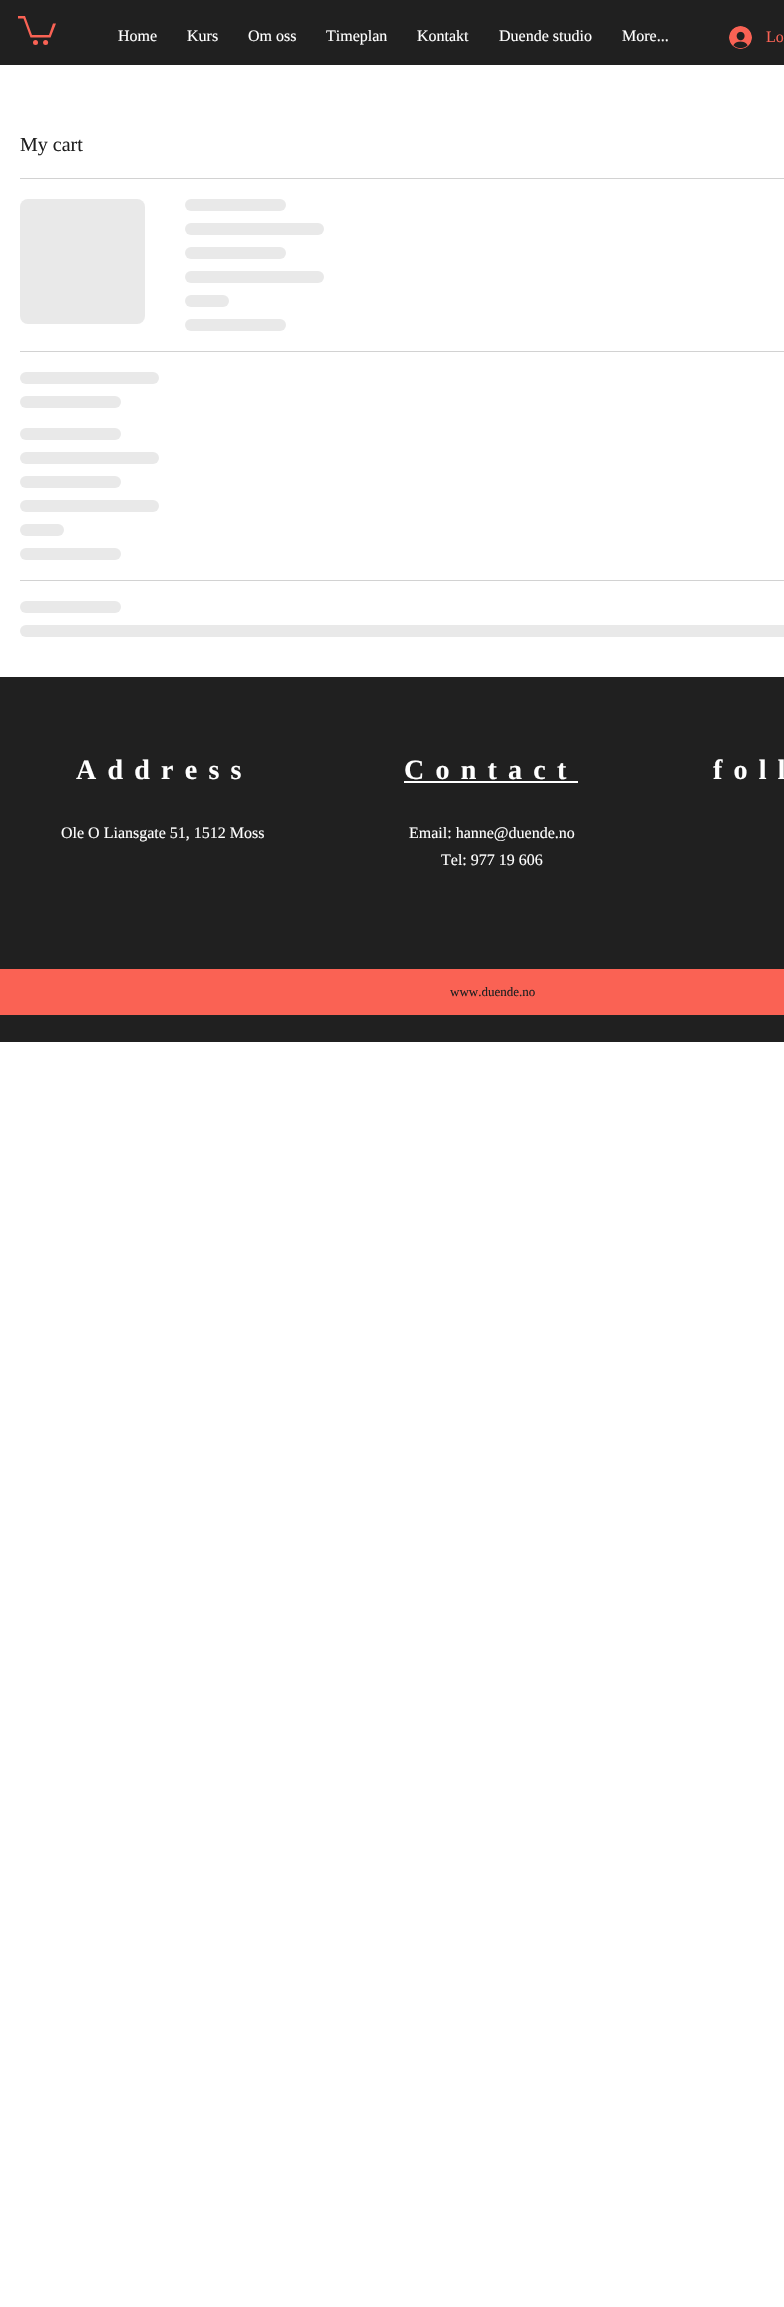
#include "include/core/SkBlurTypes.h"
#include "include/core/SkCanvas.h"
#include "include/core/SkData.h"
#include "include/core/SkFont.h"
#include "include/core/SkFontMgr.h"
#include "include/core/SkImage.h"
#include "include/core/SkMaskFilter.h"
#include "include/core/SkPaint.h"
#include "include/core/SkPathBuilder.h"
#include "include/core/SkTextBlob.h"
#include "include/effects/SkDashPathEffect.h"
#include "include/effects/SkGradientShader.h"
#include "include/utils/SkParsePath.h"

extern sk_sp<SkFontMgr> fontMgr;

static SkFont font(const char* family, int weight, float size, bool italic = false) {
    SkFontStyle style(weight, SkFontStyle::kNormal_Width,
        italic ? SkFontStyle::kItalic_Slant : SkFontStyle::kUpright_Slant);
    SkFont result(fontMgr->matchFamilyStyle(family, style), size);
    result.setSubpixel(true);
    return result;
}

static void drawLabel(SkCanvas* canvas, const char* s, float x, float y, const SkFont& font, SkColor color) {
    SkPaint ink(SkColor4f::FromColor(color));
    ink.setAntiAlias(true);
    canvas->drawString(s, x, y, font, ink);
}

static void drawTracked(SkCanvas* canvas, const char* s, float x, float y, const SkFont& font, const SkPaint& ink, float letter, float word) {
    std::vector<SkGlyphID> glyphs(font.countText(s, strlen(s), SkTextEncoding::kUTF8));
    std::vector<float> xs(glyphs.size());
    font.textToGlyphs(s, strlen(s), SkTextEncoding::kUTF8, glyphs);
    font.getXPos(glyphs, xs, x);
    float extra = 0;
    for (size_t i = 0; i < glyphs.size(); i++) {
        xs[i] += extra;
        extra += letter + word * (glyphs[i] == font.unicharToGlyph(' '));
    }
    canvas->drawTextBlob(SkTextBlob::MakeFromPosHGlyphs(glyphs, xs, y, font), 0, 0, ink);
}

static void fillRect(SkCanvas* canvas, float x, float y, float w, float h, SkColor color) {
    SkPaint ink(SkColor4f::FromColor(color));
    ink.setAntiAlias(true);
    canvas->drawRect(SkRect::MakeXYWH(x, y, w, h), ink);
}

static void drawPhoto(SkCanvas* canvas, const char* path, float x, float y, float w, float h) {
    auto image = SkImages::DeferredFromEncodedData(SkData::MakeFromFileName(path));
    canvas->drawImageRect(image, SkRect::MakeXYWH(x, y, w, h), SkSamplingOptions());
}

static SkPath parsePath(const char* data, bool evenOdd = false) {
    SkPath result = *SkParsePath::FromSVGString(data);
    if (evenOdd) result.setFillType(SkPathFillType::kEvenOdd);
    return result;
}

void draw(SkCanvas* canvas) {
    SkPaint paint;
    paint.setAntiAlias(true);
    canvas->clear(0xFFFFFFFF);
    fillRect(canvas, 0, 0, 784, 65, 0xFF202020);
    paint.setColor(0xFFFA6254);
    canvas->drawPath(parsePath("M56 23.5L50.5 37.5H30.5L23.5 18.5H18V16H25L32 35H49L53 23.5"), paint);
    canvas->drawCircle(45.6f, 42.4f, 2.5f, paint);
    canvas->drawCircle(35.5f, 42.4f, 2.5f, paint);
    SkFont font1 = font("Liberation Serif", 400, 16);
    drawLabel(canvas, "Home", 118, 41, font1, 0xFFFFFFFF);
    drawLabel(canvas, "Kurs", 187, 41, font1, 0xFFFFFFFF);
    drawLabel(canvas, "Om oss", 248, 41, font1, 0xFFFFFFFF);
    drawLabel(canvas, "Timeplan", 326, 41, font1, 0xFFFFFFFF);
    drawLabel(canvas, "Kontakt", 417, 41, font1, 0xFFFFFFFF);
    drawLabel(canvas, "Duende studio", 499, 41, font1, 0xFFFFFFFF);
    drawLabel(canvas, "More...", 622, 41, font1, 0xFFFFFFFF);
    drawPhoto(canvas, "assets/img1.png", 729, 26, 23, 23);
    drawLabel(canvas, "Lo", 766, 42, font1, 0xFFFA6254);
    fillRect(canvas, 20, 178, 764, 1, 0xFFD2D2D2);
    SkFont font2 = font("Liberation Serif", 400, 20);
    drawLabel(canvas, "My cart", 20, 151, font2, 0xFF202020);
    {
        const SkColor colors[] = {0xFFE9E9E9, 0xFFD2D2D2, 0xFFE9E9E9};
        const float stops[] = {0.25f, 0.37f, 0.63f};
        const SkPoint ends[] = {{20, 262}, {520, 262}};
        paint.setShader(SkGradientShader::MakeLinear(ends, colors, stops, 3, SkTileMode::kClamp));
        paint.setAlpha(255);
    }
    canvas->drawRoundRect(SkRect::MakeXYWH(20, 199, 125, 125), 8, 8, paint);
    {
        const SkColor colors[] = {0xFFE9E9E9, 0xFFD2D2D2, 0xFFE9E9E9};
        const float stops[] = {0.25f, 0.37f, 0.63f};
        const SkPoint ends[] = {{185, 205}, {589, 205}};
        paint.setShader(SkGradientShader::MakeLinear(ends, colors, stops, 3, SkTileMode::kClamp));
        paint.setAlpha(255);
    }
    canvas->drawRoundRect(SkRect::MakeXYWH(185, 199, 101, 12), 6, 6, paint);
    {
        const SkColor colors[] = {0xFFE9E9E9, 0xFFD2D2D2, 0xFFE9E9E9};
        const float stops[] = {0.25f, 0.37f, 0.63f};
        const SkPoint ends[] = {{185, 229}, {741, 229}};
        paint.setShader(SkGradientShader::MakeLinear(ends, colors, stops, 3, SkTileMode::kClamp));
        paint.setAlpha(255);
    }
    canvas->drawRoundRect(SkRect::MakeXYWH(185, 223, 139, 12), 6, 6, paint);
    {
        const SkColor colors[] = {0xFFE9E9E9, 0xFFD2D2D2, 0xFFE9E9E9};
        const float stops[] = {0.25f, 0.37f, 0.63f};
        const SkPoint ends[] = {{185, 253}, {589, 253}};
        paint.setShader(SkGradientShader::MakeLinear(ends, colors, stops, 3, SkTileMode::kClamp));
        paint.setAlpha(255);
    }
    canvas->drawRoundRect(SkRect::MakeXYWH(185, 247, 101, 12), 6, 6, paint);
    {
        const SkColor colors[] = {0xFFE9E9E9, 0xFFD2D2D2, 0xFFE9E9E9};
        const float stops[] = {0.25f, 0.37f, 0.63f};
        const SkPoint ends[] = {{185, 277}, {741, 277}};
        paint.setShader(SkGradientShader::MakeLinear(ends, colors, stops, 3, SkTileMode::kClamp));
        paint.setAlpha(255);
    }
    canvas->drawRoundRect(SkRect::MakeXYWH(185, 271, 139, 12), 6, 6, paint);
    {
        const SkColor colors[] = {0xFFE9E9E9, 0xFFD2D2D2, 0xFFE9E9E9};
        const float stops[] = {0.25f, 0.37f, 0.63f};
        const SkPoint ends[] = {{185, 301}, {361, 301}};
        paint.setShader(SkGradientShader::MakeLinear(ends, colors, stops, 3, SkTileMode::kClamp));
        paint.setAlpha(255);
    }
    canvas->drawRoundRect(SkRect::MakeXYWH(185, 295, 44, 12), 6, 6, paint);
    {
        const SkColor colors[] = {0xFFE9E9E9, 0xFFD2D2D2, 0xFFE9E9E9};
        const float stops[] = {0.25f, 0.37f, 0.63f};
        const SkPoint ends[] = {{185, 325}, {589, 325}};
        paint.setShader(SkGradientShader::MakeLinear(ends, colors, stops, 3, SkTileMode::kClamp));
        paint.setAlpha(255);
    }
    canvas->drawRoundRect(SkRect::MakeXYWH(185, 319, 101, 12), 6, 6, paint);
    fillRect(canvas, 20, 351, 764, 1, 0xFFD2D2D2);
    {
        const SkColor colors[] = {0xFFE9E9E9, 0xFFD2D2D2, 0xFFE9E9E9};
        const float stops[] = {0.25f, 0.37f, 0.63f};
        const SkPoint ends[] = {{20, 378}, {576, 378}};
        paint.setShader(SkGradientShader::MakeLinear(ends, colors, stops, 3, SkTileMode::kClamp));
        paint.setAlpha(255);
    }
    canvas->drawRoundRect(SkRect::MakeXYWH(20, 372, 139, 12), 6, 6, paint);
    {
        const SkColor colors[] = {0xFFE9E9E9, 0xFFD2D2D2, 0xFFE9E9E9};
        const float stops[] = {0.25f, 0.37f, 0.63f};
        const SkPoint ends[] = {{20, 402}, {424, 402}};
        paint.setShader(SkGradientShader::MakeLinear(ends, colors, stops, 3, SkTileMode::kClamp));
        paint.setAlpha(255);
    }
    canvas->drawRoundRect(SkRect::MakeXYWH(20, 396, 101, 12), 6, 6, paint);
    {
        const SkColor colors[] = {0xFFE9E9E9, 0xFFD2D2D2, 0xFFE9E9E9};
        const float stops[] = {0.25f, 0.37f, 0.63f};
        const SkPoint ends[] = {{20, 434}, {424, 434}};
        paint.setShader(SkGradientShader::MakeLinear(ends, colors, stops, 3, SkTileMode::kClamp));
        paint.setAlpha(255);
    }
    canvas->drawRoundRect(SkRect::MakeXYWH(20, 428, 101, 12), 6, 6, paint);
    {
        const SkColor colors[] = {0xFFE9E9E9, 0xFFD2D2D2, 0xFFE9E9E9};
        const float stops[] = {0.25f, 0.37f, 0.63f};
        const SkPoint ends[] = {{20, 458}, {576, 458}};
        paint.setShader(SkGradientShader::MakeLinear(ends, colors, stops, 3, SkTileMode::kClamp));
        paint.setAlpha(255);
    }
    canvas->drawRoundRect(SkRect::MakeXYWH(20, 452, 139, 12), 6, 6, paint);
    {
        const SkColor colors[] = {0xFFE9E9E9, 0xFFD2D2D2, 0xFFE9E9E9};
        const float stops[] = {0.25f, 0.37f, 0.63f};
        const SkPoint ends[] = {{20, 482}, {424, 482}};
        paint.setShader(SkGradientShader::MakeLinear(ends, colors, stops, 3, SkTileMode::kClamp));
        paint.setAlpha(255);
    }
    canvas->drawRoundRect(SkRect::MakeXYWH(20, 476, 101, 12), 6, 6, paint);
    {
        const SkColor colors[] = {0xFFE9E9E9, 0xFFD2D2D2, 0xFFE9E9E9};
        const float stops[] = {0.25f, 0.37f, 0.63f};
        const SkPoint ends[] = {{20, 506}, {576, 506}};
        paint.setShader(SkGradientShader::MakeLinear(ends, colors, stops, 3, SkTileMode::kClamp));
        paint.setAlpha(255);
    }
    canvas->drawRoundRect(SkRect::MakeXYWH(20, 500, 139, 12), 6, 6, paint);
    {
        const SkColor colors[] = {0xFFE9E9E9, 0xFFD2D2D2, 0xFFE9E9E9};
        const float stops[] = {0.25f, 0.37f, 0.63f};
        const SkPoint ends[] = {{20, 530}, {196, 530}};
        paint.setShader(SkGradientShader::MakeLinear(ends, colors, stops, 3, SkTileMode::kClamp));
        paint.setAlpha(255);
    }
    canvas->drawRoundRect(SkRect::MakeXYWH(20, 524, 44, 12), 6, 6, paint);
    {
        const SkColor colors[] = {0xFFE9E9E9, 0xFFD2D2D2, 0xFFE9E9E9};
        const float stops[] = {0.25f, 0.37f, 0.63f};
        const SkPoint ends[] = {{20, 554}, {424, 554}};
        paint.setShader(SkGradientShader::MakeLinear(ends, colors, stops, 3, SkTileMode::kClamp));
        paint.setAlpha(255);
    }
    canvas->drawRoundRect(SkRect::MakeXYWH(20, 548, 101, 12), 6, 6, paint);
    fillRect(canvas, 20, 580, 764, 1, 0xFFD2D2D2);
    {
        const SkColor colors[] = {0xFFE9E9E9, 0xFFD2D2D2, 0xFFE9E9E9};
        const float stops[] = {0.25f, 0.37f, 0.63f};
        const SkPoint ends[] = {{20, 607}, {424, 607}};
        paint.setShader(SkGradientShader::MakeLinear(ends, colors, stops, 3, SkTileMode::kClamp));
        paint.setAlpha(255);
    }
    canvas->drawRoundRect(SkRect::MakeXYWH(20, 601, 101, 12), 6, 6, paint);
    {
        const SkColor colors[] = {0xFFE9E9E9, 0xFFD2D2D2, 0xFFE9E9E9};
        const float stops[] = {0.25f, 0.37f, 0.63f};
        const SkPoint ends[] = {{20, 631}, {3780, 631}};
        paint.setShader(SkGradientShader::MakeLinear(ends, colors, stops, 3, SkTileMode::kClamp));
        paint.setAlpha(255);
    }
    canvas->drawRoundRect(SkRect::MakeXYWH(20, 625, 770, 12), 6, 6, paint);
    fillRect(canvas, 0, 677, 784, 365, 0xFF202020);
    SkFont font3 = font("Liberation Serif", 700, 28);
    paint.setShader(nullptr);
    paint.setColor(0xFFFFFFFF);
    drawTracked(canvas, "Address", 76, 779, font3, paint, 11.25f, 0);
    drawLabel(canvas, "Ole O Liansgate 51, 1512 Moss", 61, 838, font1, 0xFFFFFFFF);
    drawTracked(canvas, "Contact", 404, 779, font3, paint, 11.25f, 0);
    fillRect(canvas, 404, 781, 174, 2, 0xFFFFFFFF);
    drawLabel(canvas, "Email: hanne@duende.no", 409, 838, font1, 0xFFFFFFFF);
    drawLabel(canvas, "Tel: 977 19 606", 441, 865, font1, 0xFFFFFFFF);
    drawTracked(canvas, "foll", 713, 779, font3, paint, 11.25f, 0);
    fillRect(canvas, 0, 969, 784, 46, 0xFFFA6254);
    SkFont font4 = font("Liberation Serif", 400, 13);
    drawLabel(canvas, "www.duende.no", 450, 996, font4, 0xFF202020);
}
